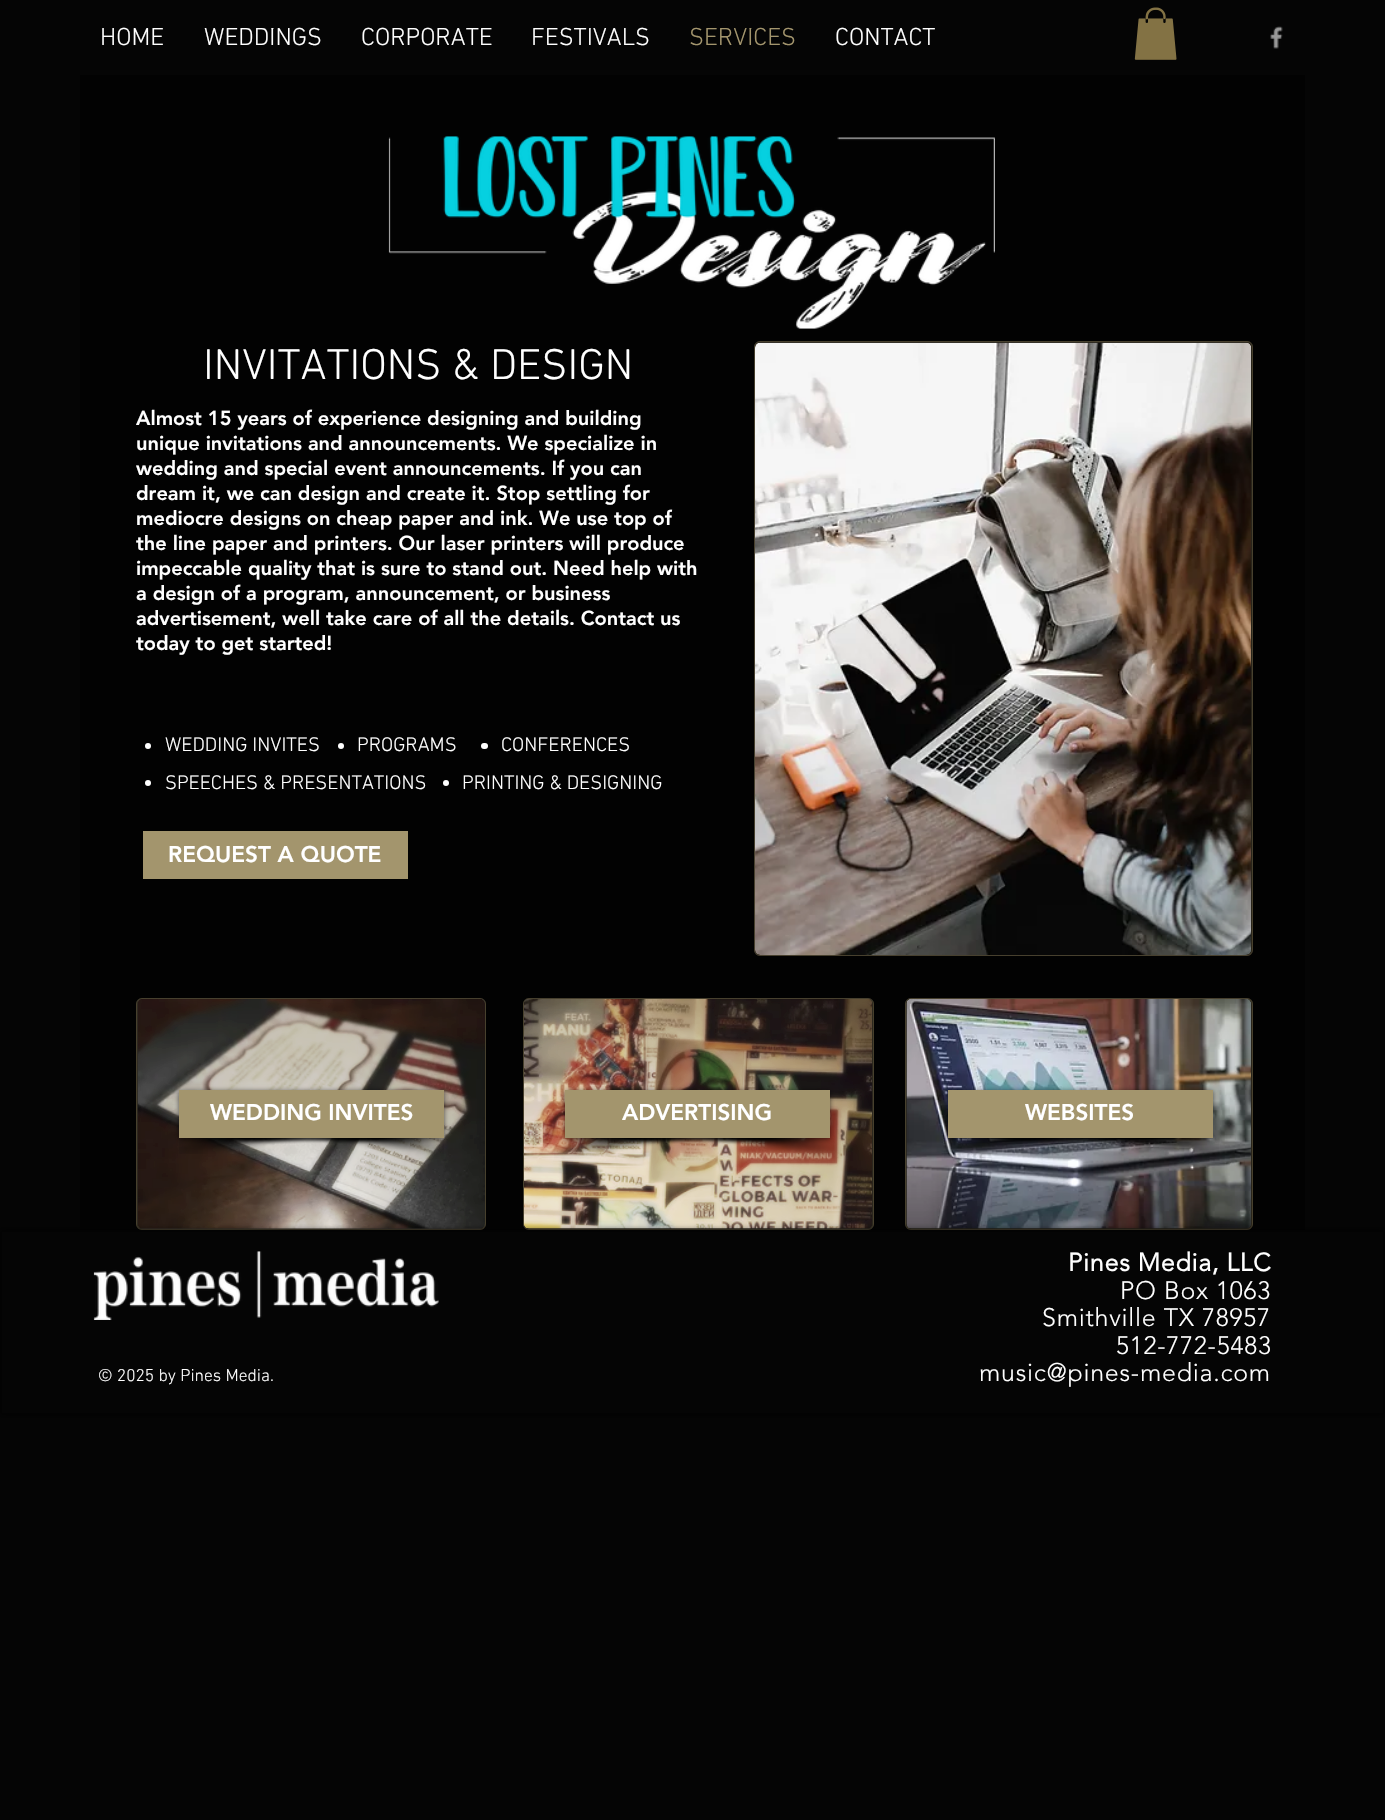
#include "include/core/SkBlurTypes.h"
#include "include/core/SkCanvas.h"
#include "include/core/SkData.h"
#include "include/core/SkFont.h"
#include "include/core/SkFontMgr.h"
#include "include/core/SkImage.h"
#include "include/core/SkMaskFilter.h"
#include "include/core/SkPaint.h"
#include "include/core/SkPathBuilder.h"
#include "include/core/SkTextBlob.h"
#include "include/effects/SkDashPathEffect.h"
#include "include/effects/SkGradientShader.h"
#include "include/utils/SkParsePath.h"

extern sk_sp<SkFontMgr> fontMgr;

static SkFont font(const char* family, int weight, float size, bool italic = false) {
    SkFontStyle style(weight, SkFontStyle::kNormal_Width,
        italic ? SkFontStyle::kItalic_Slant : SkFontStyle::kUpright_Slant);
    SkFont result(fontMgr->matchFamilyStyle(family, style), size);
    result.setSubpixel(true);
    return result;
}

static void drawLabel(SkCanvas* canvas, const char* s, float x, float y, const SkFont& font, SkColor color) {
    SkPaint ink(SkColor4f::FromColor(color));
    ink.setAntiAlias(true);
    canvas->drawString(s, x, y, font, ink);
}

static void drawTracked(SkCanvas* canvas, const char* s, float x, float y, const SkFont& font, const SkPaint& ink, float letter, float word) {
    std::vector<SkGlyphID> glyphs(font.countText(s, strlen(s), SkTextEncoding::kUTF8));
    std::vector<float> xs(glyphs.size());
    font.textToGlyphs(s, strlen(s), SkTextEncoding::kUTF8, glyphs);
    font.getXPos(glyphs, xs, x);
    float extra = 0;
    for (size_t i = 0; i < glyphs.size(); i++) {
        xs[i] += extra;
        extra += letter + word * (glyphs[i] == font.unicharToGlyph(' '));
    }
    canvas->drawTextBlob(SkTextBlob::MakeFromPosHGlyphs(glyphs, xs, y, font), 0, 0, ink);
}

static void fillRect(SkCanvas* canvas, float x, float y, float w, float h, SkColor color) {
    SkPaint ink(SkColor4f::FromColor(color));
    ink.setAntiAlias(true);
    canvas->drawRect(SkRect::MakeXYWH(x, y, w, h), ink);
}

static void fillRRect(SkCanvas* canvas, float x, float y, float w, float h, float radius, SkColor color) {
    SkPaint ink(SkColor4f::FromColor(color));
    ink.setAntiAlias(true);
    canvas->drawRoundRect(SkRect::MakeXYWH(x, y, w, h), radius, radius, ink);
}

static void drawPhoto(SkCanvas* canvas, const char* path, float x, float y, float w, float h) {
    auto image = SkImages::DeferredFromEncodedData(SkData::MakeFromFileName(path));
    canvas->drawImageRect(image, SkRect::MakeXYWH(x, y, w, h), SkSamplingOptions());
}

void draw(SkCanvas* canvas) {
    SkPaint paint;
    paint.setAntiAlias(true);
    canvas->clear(0xFF050505);
    SkFont font1 = font("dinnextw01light", 300, 25);
    drawLabel(canvas, "HOME", 100, 45, font1, 0xFFFFFFFF);
    drawLabel(canvas, "WEDDINGS", 204, 45, font1, 0xFFFFFFFF);
    drawLabel(canvas, "CORPORATE", 361, 45, font1, 0xFFFFFFFF);
    drawLabel(canvas, "FESTIVALS", 531, 45, font1, 0xFFFFFFFF);
    drawLabel(canvas, "SERVICES", 689, 45, font1, 0xFFA3956D);
    drawLabel(canvas, "CONTACT", 835, 45, font1, 0xFFFFFFFF);
    drawPhoto(canvas, "assets/img1.png", 1134, 7, 43, 53);
    drawPhoto(canvas, "assets/img2.png", 1270, 26, 13, 23);
    fillRect(canvas, 80, 75, 1225, 1155, 0xFF020202);
    drawPhoto(canvas, "assets/img3.png", 388, 136, 607, 193);
    SkFont font2 = font("dinnextw01light", 300, 43.75f);
    drawLabel(canvas, "INVITATIONS & DESIGN", 203, 379, font2, 0xFFFFFFFF);
    fillRRect(canvas, 754, 341, 499, 615, 6, 0xFF29251B);
    paint.setStroke(true);
    paint.setStrokeWidth(1);
    paint.setColor(0x409E8F65);
    canvas->drawRoundRect(SkRect::MakeXYWH(754.5f, 341.5f, 498, 614), 5.5f, 5.5f, paint);
    drawPhoto(canvas, "assets/img4.png", 755, 342, 496, 613);
    SkFont font3 = font("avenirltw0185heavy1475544", 900, 20);
    drawLabel(canvas, "Almost 15 years of experience designing and building", 136, 425, font3, 0xFFFFFFFF);
    drawLabel(canvas, "unique invitations and announcements. We specialize in", 136, 450, font3, 0xFFFFFFFF);
    drawLabel(canvas, "wedding and special event announcements. If you can", 136, 475, font3, 0xFFFFFFFF);
    drawLabel(canvas, "dream it, we can design and create it. Stop settling for", 136, 500, font3, 0xFFFFFFFF);
    drawLabel(canvas, "mediocre designs on cheap paper and ink. We use top of", 136, 525, font3, 0xFFFFFFFF);
    drawLabel(canvas, "the line paper and printers. Our laser printers will produce", 136, 550, font3, 0xFFFFFFFF);
    drawLabel(canvas, "impeccable quality that is sure to stand out. Need help with", 136, 575, font3, 0xFFFFFFFF);
    drawLabel(canvas, "a design of a program, announcement, or business", 136, 600, font3, 0xFFFFFFFF);
    drawLabel(canvas, "advertisement, well take care of all the details. Contact us", 136, 625, font3, 0xFFFFFFFF);
    drawLabel(canvas, "today to get started!", 136, 650, font3, 0xFFFFFFFF);
    paint.setStroke(false);
    paint.setColor(0xFFFFFFFF);
    canvas->drawCircle(148, 746, 3, paint);
    SkFont font4 = font("dinnextw01light", 300, 20);
    drawLabel(canvas, "WEDDING INVITES", 165, 751, font4, 0xFFFFFFFF);
    canvas->drawCircle(341, 746, 3, paint);
    drawLabel(canvas, "PROGRAMS", 357, 751, font4, 0xFFFFFFFF);
    fillRRect(canvas, 481, 743, 7, 6, 3, 0xFFFFFFFF);
    drawLabel(canvas, "CONFERENCES", 501, 751, font4, 0xFFFFFFFF);
    canvas->drawCircle(148, 783, 3, paint);
    drawLabel(canvas, "SPEECHES & PRESENTATIONS", 165, 789, font4, 0xFFFFFFFF);
    canvas->drawCircle(446, 783, 3, paint);
    drawLabel(canvas, "PRINTING & DESIGNING", 462, 789, font4, 0xFFFFFFFF);
    fillRect(canvas, 143, 831, 265, 48, 0xFFA3956D);
    SkFont font5 = font("avenirltw0185heavy1475544", 900, 22.5f);
    drawLabel(canvas, "REQUEST A QUOTE", 168, 862, font5, 0xFFFFFFFF);
    fillRRect(canvas, 136, 998, 350, 232, 6, 0xFF29251B);
    paint.setStroke(true);
    paint.setColor(0x409E8F65);
    canvas->drawRoundRect(SkRect::MakeXYWH(136.5f, 998.5f, 349, 231), 5.5f, 5.5f, paint);
    drawPhoto(canvas, "assets/img5.png", 137, 999, 348, 230);
    fillRRect(canvas, 523, 998, 351, 232, 6, 0xFF29251B);
    canvas->drawRoundRect(SkRect::MakeXYWH(523.5f, 998.5f, 350, 231), 5.5f, 5.5f, paint);
    drawPhoto(canvas, "assets/img6.png", 524, 999, 349, 230);
    fillRRect(canvas, 905, 998, 348, 232, 6, 0xFF29251B);
    canvas->drawRoundRect(SkRect::MakeXYWH(905.5f, 998.5f, 347, 231), 5.5f, 5.5f, paint);
    drawPhoto(canvas, "assets/img7.png", 906, 999, 345, 230);
    drawPhoto(canvas, "assets/img8.png", 179, 1138, 158, 16);
    drawPhoto(canvas, "assets/img9.png", 284, 1138, 160, 21);
    paint.setStroke(false);
    paint.setColor(0x99000000);
    paint.setMaskFilter(SkMaskFilter::MakeBlur(kNormal_SkBlurStyle, 2.5f));
    canvas->drawRect(SkRect::MakeXYWH(179, 1091, 265, 48), paint);
    paint.setMaskFilter(nullptr);
    fillRect(canvas, 179, 1090, 265, 48, 0xFFA3956D);
    drawLabel(canvas, "WEDDING INVITES", 210, 1120, font5, 0xFFFFFFFF);
    drawPhoto(canvas, "assets/img10.png", 554, 1138, 186, 21);
    drawPhoto(canvas, "assets/img11.png", 673, 1138, 168, 21);
    paint.setMaskFilter(SkMaskFilter::MakeBlur(kNormal_SkBlurStyle, 2.5f));
    canvas->drawRect(SkRect::MakeXYWH(565, 1091, 265, 48), paint);
    paint.setMaskFilter(nullptr);
    fillRect(canvas, 565, 1090, 265, 48, 0xFFA3956D);
    drawLabel(canvas, "ADVERTISING", 622, 1120, font5, 0xFFFFFFFF);
    drawPhoto(canvas, "assets/img12.png", 944, 1138, 164, 21);
    drawPhoto(canvas, "assets/img13.png", 1066, 1138, 153, 17);
    paint.setMaskFilter(SkMaskFilter::MakeBlur(kNormal_SkBlurStyle, 2.5f));
    canvas->drawRect(SkRect::MakeXYWH(948, 1091, 265, 48), paint);
    paint.setMaskFilter(nullptr);
    fillRect(canvas, 948, 1090, 265, 48, 0xFFA3956D);
    drawLabel(canvas, "WEBSITES", 1025, 1120, font5, 0xFFFFFFFF);
    paint.setColor(0xB3000000);
    paint.setMaskFilter(SkMaskFilter::MakeBlur(kNormal_SkBlurStyle, 3));
    canvas->drawRect(SkRect::MakeXYWH(0, 1230, 1385, 185), paint);
    paint.setMaskFilter(nullptr);
    fillRect(canvas, 2, 1232, 1381, 181, 0xFF050505);
    drawPhoto(canvas, "assets/img14.png", 93, 1251, 346, 69);
    SkFont font6 = font("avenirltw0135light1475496", 700, 25);
    paint.setColor(0xFFFFFFFF);
    drawTracked(canvas, "Pines Media, LLC", 1068, 1271, font6, paint, 0.75f, 0);
    SkFont font7 = font("avenirltw0135light1475496", 300, 25);
    drawTracked(canvas, "PO Box 1063", 1120, 1299, font7, paint, 0.75f, 0);
    drawTracked(canvas, "Smithville TX 78957", 1042, 1326, font7, paint, 0.75f, 0);
    drawTracked(canvas, "512-772-5483", 1116, 1354, font7, paint, 0.75f, 0);
    drawTracked(canvas, "music@pines-media.com", 979, 1381, font7, paint, 0.75f, 0);
    SkFont font8 = font("dinnextw01light", 300, 17.5f);
    drawLabel(canvas, "© 2025 by Pines Media.", 98, 1381, font8, 0xFFFFFFFF);
}
